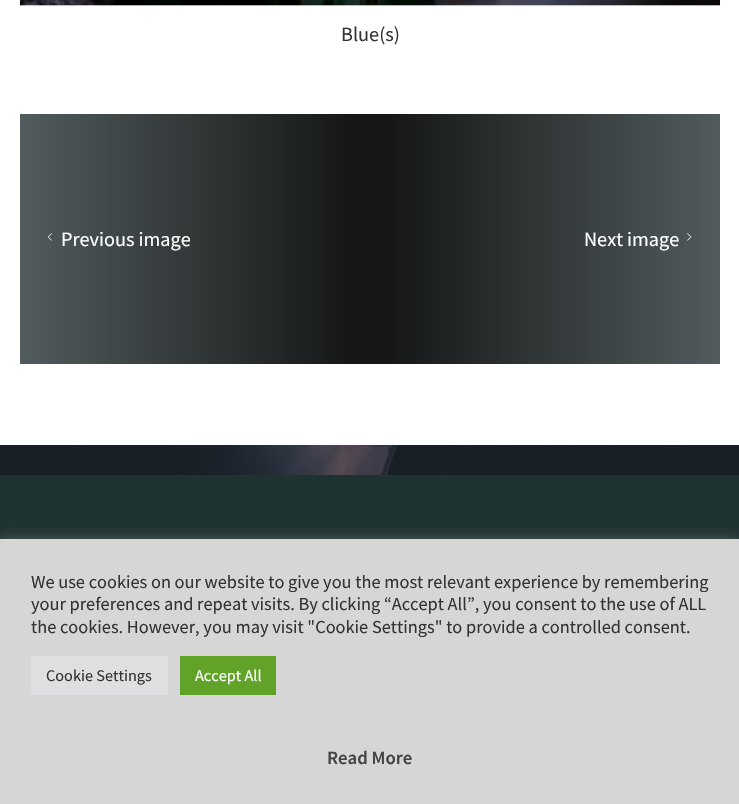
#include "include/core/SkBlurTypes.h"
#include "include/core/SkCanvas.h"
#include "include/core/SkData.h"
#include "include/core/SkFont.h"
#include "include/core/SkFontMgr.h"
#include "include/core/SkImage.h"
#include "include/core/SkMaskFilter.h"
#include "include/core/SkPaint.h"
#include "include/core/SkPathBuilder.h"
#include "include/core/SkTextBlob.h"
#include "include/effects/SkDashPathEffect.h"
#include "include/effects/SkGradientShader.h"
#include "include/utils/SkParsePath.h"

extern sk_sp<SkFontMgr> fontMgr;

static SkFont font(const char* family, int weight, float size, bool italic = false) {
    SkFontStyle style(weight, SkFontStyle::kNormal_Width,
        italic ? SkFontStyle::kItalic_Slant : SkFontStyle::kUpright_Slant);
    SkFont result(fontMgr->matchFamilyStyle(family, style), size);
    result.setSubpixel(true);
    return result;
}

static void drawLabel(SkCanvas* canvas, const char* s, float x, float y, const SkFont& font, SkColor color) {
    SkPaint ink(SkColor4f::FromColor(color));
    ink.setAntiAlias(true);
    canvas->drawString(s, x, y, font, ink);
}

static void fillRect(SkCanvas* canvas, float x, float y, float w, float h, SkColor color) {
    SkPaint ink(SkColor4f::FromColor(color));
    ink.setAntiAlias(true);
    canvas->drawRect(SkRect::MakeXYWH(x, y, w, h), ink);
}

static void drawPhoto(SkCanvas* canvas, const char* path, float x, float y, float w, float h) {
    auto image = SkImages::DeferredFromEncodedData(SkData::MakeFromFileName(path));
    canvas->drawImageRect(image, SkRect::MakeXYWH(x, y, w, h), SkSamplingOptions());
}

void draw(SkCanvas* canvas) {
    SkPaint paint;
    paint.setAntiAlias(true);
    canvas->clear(0xFFFFFFFF);
    drawPhoto(canvas, "assets/img1.png", 0, 445, 739, 30);
    drawPhoto(canvas, "assets/img2.png", 20, 0, 700, 6);
    SkFont font1 = font("Source Sans Pro", 400, 20.25f);
    drawLabel(canvas, "Blue(s)", 341, 41, font1, 0xFF333333);
    {
        const SkColor colors[] = {0xFF525B5D, 0xFF151717};
        const float stops[] = {0, 0.95f};
        const SkPoint ends[] = {{20, 239}, {370, 239}};
        paint.setShader(SkGradientShader::MakeLinear(ends, colors, stops, 2, SkTileMode::kClamp));
        paint.setAlpha(255);
    }
    canvas->drawRect(SkRect::MakeXYWH(20, 114, 350, 250), paint);
    drawPhoto(canvas, "assets/img3.png", 47, 233, 5, 8);
    drawLabel(canvas, "Previous image", 61, 246, font1, 0xFFFFFFFF);
    {
        const SkColor colors[] = {0xFF525B5D, 0xFF151717};
        const float stops[] = {0, 0.95f};
        const SkPoint ends[] = {{720, 239}, {370, 239}};
        paint.setShader(SkGradientShader::MakeLinear(ends, colors, stops, 2, SkTileMode::kClamp));
        paint.setAlpha(255);
    }
    canvas->drawRect(SkRect::MakeXYWH(370, 114, 350, 250), paint);
    drawLabel(canvas, "Next image", 584, 246, font1, 0xFFFFFFFF);
    drawPhoto(canvas, "assets/img4.png", 687, 233, 5, 8);
    fillRect(canvas, 0, 475, 739, 64, 0xFF1E3231);
    paint.setShader(nullptr);
    paint.setColor(0x4DACABAB);
    paint.setMaskFilter(SkMaskFilter::MakeBlur(kNormal_SkBlurStyle, 6));
    canvas->drawRect(SkRect::MakeXYWH(0, 538, 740, 266), paint);
    paint.setMaskFilter(nullptr);
    fillRect(canvas, 0, 539, 739, 265, 0xFFD6D6D6);
    SkFont font2 = font("Source Sans Pro", 400, 18.35f);
    drawLabel(canvas, "We use cookies on our website to give you the most relevant experience by remembering", 31, 588, font2, 0xFF333333);
    drawLabel(canvas, "your preferences and repeat visits. By clicking “Accept All”, you consent to the use of ALL", 31, 610, font2, 0xFF333333);
    drawLabel(canvas, "the cookies. However, you may visit \"Cookie Settings\" to provide a controlled consent.", 31, 633, font2, 0xFF333333);
    fillRect(canvas, 31, 656, 137, 39, 0xFFDEDFE0);
    SkFont font3 = font("Source Sans Pro", 400, 16.25f);
    drawLabel(canvas, "Cookie Settings", 46, 681, font3, 0xFF333333);
    fillRect(canvas, 180, 656, 96, 39, 0xFF61A229);
    drawLabel(canvas, "Accept All", 195, 681, font3, 0xFFFFFFFF);
    SkFont font4 = font("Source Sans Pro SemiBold", 600, 18.75f);
    drawLabel(canvas, "Read More", 327, 764, font4, 0xFF444444);
}
